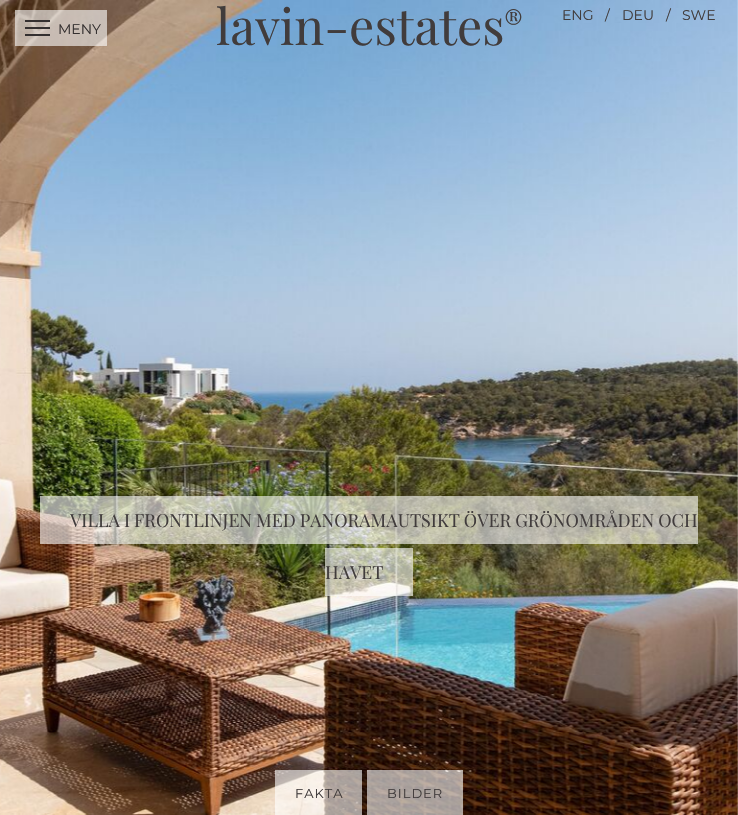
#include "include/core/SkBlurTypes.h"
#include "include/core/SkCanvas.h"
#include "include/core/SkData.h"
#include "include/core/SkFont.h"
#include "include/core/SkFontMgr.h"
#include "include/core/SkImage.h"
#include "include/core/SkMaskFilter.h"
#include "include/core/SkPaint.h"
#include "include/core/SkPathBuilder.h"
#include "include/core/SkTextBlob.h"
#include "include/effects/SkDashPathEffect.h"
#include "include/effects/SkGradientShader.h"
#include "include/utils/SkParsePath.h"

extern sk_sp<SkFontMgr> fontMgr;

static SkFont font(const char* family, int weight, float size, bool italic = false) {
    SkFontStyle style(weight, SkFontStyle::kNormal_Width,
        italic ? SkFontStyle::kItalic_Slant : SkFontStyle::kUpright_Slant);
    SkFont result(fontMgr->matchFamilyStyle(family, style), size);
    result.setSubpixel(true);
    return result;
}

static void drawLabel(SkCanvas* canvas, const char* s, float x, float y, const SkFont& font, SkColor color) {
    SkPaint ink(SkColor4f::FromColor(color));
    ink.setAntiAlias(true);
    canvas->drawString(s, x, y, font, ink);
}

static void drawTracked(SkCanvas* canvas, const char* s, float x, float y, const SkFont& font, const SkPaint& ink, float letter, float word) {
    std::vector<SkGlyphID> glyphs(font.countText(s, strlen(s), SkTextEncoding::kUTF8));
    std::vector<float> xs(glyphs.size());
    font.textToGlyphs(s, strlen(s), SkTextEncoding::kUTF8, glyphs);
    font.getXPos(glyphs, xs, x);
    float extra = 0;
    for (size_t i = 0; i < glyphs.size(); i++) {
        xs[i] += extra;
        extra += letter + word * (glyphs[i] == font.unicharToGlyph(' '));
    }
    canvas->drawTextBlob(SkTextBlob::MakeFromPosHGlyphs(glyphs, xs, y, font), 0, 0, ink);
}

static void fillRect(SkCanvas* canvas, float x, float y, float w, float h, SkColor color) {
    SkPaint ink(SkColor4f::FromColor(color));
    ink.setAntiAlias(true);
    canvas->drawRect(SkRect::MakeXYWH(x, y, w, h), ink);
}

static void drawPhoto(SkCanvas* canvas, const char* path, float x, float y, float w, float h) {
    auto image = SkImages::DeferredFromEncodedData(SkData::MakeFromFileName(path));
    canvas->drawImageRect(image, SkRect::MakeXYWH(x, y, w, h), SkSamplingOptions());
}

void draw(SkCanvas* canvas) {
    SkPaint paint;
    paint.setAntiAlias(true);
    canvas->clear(0xFFFFFFFF);
    drawPhoto(canvas, "assets/img1.png", 0, 0, 738, 815);
    SkFont font1 = font("Playfair Display", 400, 50);
    drawLabel(canvas, "lavin-estates", 216, 45, font1, 0xFF413C3C);
    SkFont font2 = font("Playfair Display", 400, 28);
    drawLabel(canvas, "®", 504, 31, font2, 0xFF413C3C);
    SkFont font3 = font("Montserrat", 100, 14);
    drawLabel(canvas, "ENG", 562, 20, font3, 0xFF413C3C);
    drawLabel(canvas, "/", 605, 20, font3, 0xFF413C3C);
    drawLabel(canvas, "DEU", 622, 20, font3, 0xFF413C3C);
    drawLabel(canvas, "/", 666, 20, font3, 0xFF413C3C);
    drawLabel(canvas, "SWE", 682, 20, font3, 0xFF413C3C);
    fillRect(canvas, 15, 10, 92, 36, 0x99FFFFFF);
    fillRect(canvas, 25, 27, 25, 2, 0xFF343030);
    fillRect(canvas, 25, 20, 25, 2, 0xFF343030);
    fillRect(canvas, 25, 34, 25, 2, 0xFF343030);
    drawLabel(canvas, "MENY", 58, 34, font3, 0xFF343030);
    fillRect(canvas, 40, 496, 658, 48, 0x99FFFFFF);
    SkFont font4 = font("Playfair Display", 400, 18);
    paint.setColor(0xFF413C3C);
    drawTracked(canvas, "VILLA I FRONTLINJEN MED PANORAMAUTSIKT ÖVER GRÖNOMRÅDEN OCH", 70, 527, font4, paint, 0, -0.5f);
    fillRect(canvas, 325, 548, 88, 48, 0x99FFFFFF);
    drawLabel(canvas, "HAVET", 325, 579, font4, 0xFF413C3C);
    fillRect(canvas, 275, 770, 87, 45, 0x99FFFFFF);
    SkFont font5 = font("Montserrat", 100, 13);
    drawTracked(canvas, "FAKTA", 295, 798, font5, paint, 1, 0);
    fillRect(canvas, 367, 770, 96, 45, 0x99FFFFFF);
    drawTracked(canvas, "BILDER", 387, 798, font5, paint, 1, 0);
}
